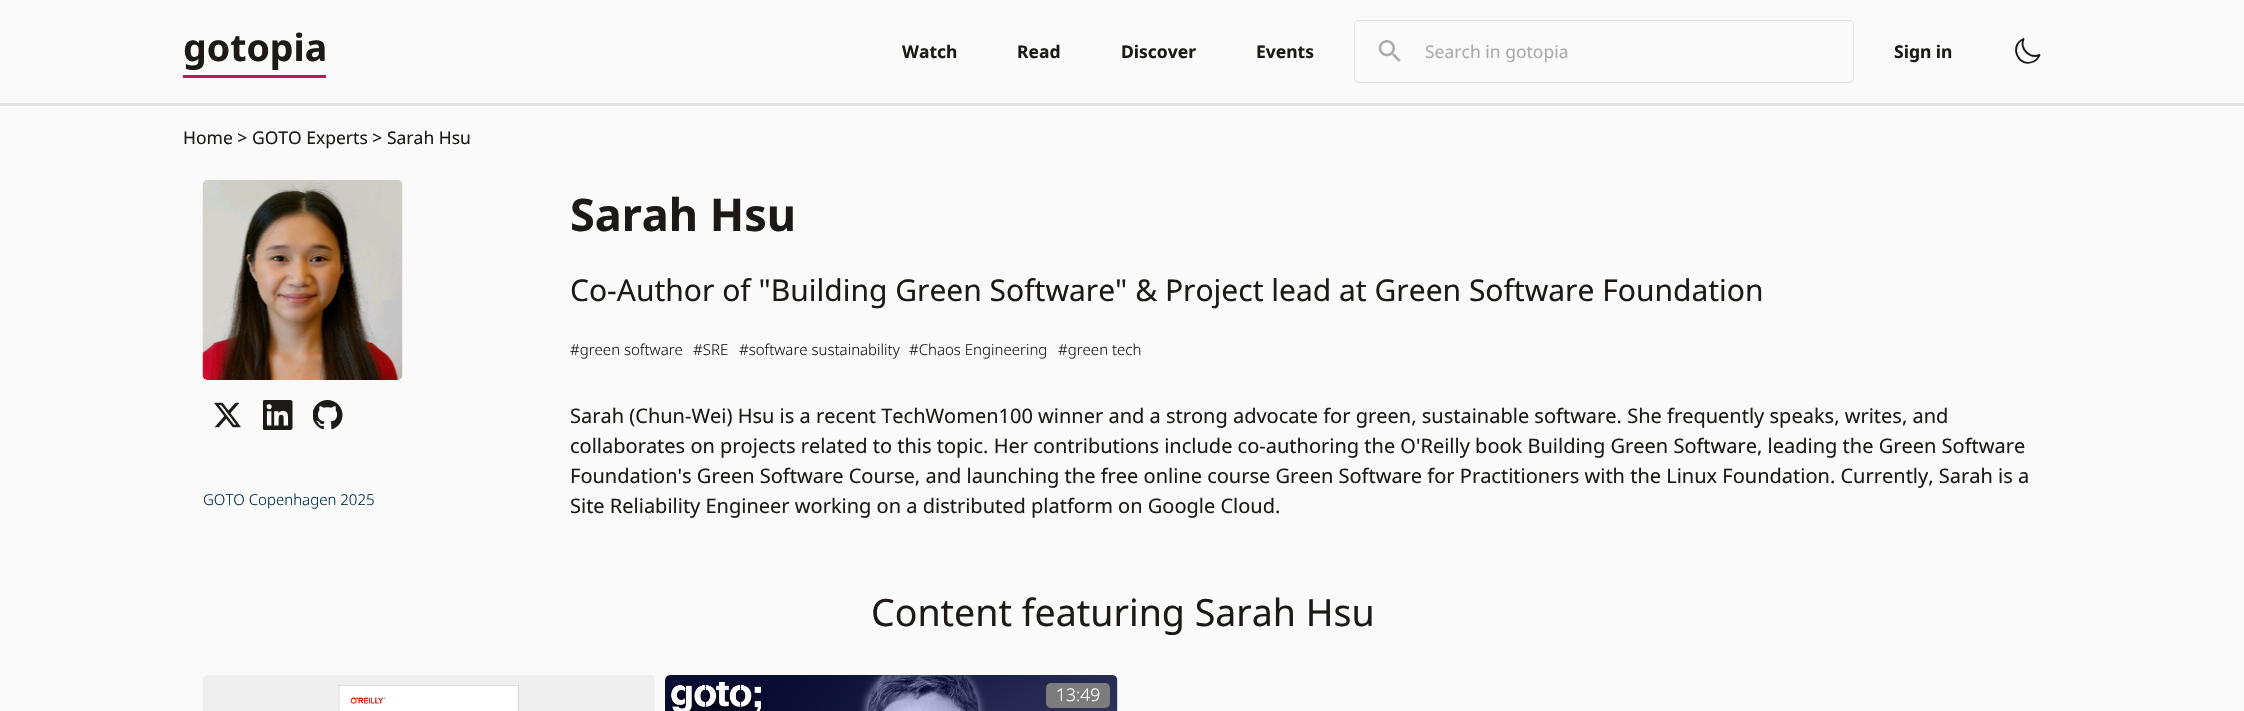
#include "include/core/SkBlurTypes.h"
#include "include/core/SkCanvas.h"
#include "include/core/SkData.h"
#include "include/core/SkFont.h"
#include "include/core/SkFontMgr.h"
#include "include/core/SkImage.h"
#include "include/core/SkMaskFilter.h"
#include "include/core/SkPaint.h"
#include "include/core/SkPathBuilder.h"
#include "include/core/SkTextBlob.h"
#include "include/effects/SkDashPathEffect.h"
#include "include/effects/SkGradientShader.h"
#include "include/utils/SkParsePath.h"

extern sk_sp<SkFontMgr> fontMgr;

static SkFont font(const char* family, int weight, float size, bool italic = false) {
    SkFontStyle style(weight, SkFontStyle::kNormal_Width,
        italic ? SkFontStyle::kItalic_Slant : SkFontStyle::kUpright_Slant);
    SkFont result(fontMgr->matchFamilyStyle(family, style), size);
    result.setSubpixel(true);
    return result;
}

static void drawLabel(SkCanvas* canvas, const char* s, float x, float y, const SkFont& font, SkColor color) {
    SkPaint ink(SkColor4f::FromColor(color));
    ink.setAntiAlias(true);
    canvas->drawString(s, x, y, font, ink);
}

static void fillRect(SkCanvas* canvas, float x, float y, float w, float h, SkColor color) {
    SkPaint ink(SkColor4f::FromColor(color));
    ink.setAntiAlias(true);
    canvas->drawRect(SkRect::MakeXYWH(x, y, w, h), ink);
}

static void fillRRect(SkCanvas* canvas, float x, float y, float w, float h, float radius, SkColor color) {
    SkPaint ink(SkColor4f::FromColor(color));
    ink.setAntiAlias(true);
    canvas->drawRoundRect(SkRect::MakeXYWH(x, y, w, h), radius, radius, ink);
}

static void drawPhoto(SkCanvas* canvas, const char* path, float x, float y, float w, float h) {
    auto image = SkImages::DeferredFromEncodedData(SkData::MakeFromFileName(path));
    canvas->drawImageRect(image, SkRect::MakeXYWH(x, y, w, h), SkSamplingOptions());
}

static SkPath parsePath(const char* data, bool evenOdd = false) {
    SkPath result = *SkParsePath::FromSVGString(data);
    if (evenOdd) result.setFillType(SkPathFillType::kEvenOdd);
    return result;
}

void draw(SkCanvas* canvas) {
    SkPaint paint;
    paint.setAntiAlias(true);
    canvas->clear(0xFFFAFAFA);
    fillRect(canvas, 0, 103, 2244, 3, 0xFFE3E3E3);
    fillRect(canvas, 183, 75, 143, 3, 0xFFBE145B);
    SkFont font1 = font("Noto Sans", 700, 37.5f);
    drawLabel(canvas, "gotopia", 183, 61, font1, 0xFF1C1917);
    SkFont font2 = font("Noto Sans", 700, 17.5f);
    drawLabel(canvas, "Watch", 902, 58, font2, 0xFF1C1917);
    drawLabel(canvas, "Read", 1017, 58, font2, 0xFF1C1917);
    drawLabel(canvas, "Discover", 1121, 58, font2, 0xFF1C1917);
    drawLabel(canvas, "Events", 1256, 58, font2, 0xFF1C1917);
    paint.setStroke(true);
    paint.setStrokeWidth(1);
    paint.setColor(0xFFE3E3E3);
    canvas->drawRoundRect(SkRect::MakeXYWH(1354.5f, 20.5f, 499, 62), 4.5f, 4.5f, paint);
    drawPhoto(canvas, "assets/img1.png", 1378, 40, 23, 22);
    SkFont font3 = font("Noto Sans", 400, 17.5f);
    drawLabel(canvas, "Search in gotopia", 1425, 58, font3, 0xFFABABAB);
    drawLabel(canvas, "Sign in", 1894, 58, font2, 0xFF1C1917);
    paint.setStrokeWidth(1.9f);
    paint.setStrokeCap(SkPaint::kRound_Cap);
    paint.setStrokeJoin(SkPaint::kRound_Join);
    paint.setColor(0xFF1C1917);
    canvas->drawPath(parsePath("M2039.5 55C2030 59 2019.5 49 2023.5 39C2008.5 45.5 2018.5 68.5 2033.5 61.5C2036.5 60 2038.5 58 2039.5 55Z"), paint);
    drawLabel(canvas, "Home > GOTO Experts > Sarah Hsu", 183, 144, font3, 0xFF1C1917);
    drawPhoto(canvas, "assets/img2.png", 202, 180, 201, 200);
    drawPhoto(canvas, "assets/img3.png", 214, 402, 27, 26);
    drawPhoto(canvas, "assets/img4.png", 263, 400, 30, 30);
    drawPhoto(canvas, "assets/img5.png", 313, 400, 30, 30);
    SkFont font4 = font("Noto Sans", 300, 15);
    drawLabel(canvas, "GOTO Copenhagen 2025", 203, 505, font4, 0xFF002B44);
    SkFont font5 = font("Noto Sans", 700, 45);
    drawLabel(canvas, "Sarah Hsu", 570, 231, font5, 0xFF1C1917);
    SkFont font6 = font("Noto Sans", 400, 30);
    drawLabel(canvas, "Co-Author of \"Building Green Software\" & Project lead at Green Software Foundation", 570, 301, font6, 0xFF1C1917);
    drawLabel(canvas, "#green software", 570, 355, font4, 0xFF1C1917);
    drawLabel(canvas, "#SRE", 693, 355, font4, 0xFF1C1917);
    drawLabel(canvas, "#software sustainability", 739, 355, font4, 0xFF1C1917);
    drawLabel(canvas, "#Chaos Engineering", 909, 355, font4, 0xFF1C1917);
    drawLabel(canvas, "#green tech", 1058, 355, font4, 0xFF1C1917);
    SkFont font7 = font("Noto Sans", 400, 20);
    drawLabel(canvas, "Sarah (Chun-Wei) Hsu is a recent TechWomen100 winner and a strong advocate for green, sustainable software. She frequently speaks, writes, and", 570, 423, font7, 0xFF1C1917);
    drawLabel(canvas, "collaborates on projects related to this topic. Her contributions include co-authoring the O'Reilly book Building Green Software, leading the Green Software", 570, 453, font7, 0xFF1C1917);
    drawLabel(canvas, "Foundation's Green Software Course, and launching the free online course Green Software for Practitioners with the Linux Foundation. Currently, Sarah is a", 570, 483, font7, 0xFF1C1917);
    drawLabel(canvas, "Site Reliability Engineer working on a distributed platform on Google Cloud.", 570, 513, font7, 0xFF1C1917);
    SkFont font8 = font("Noto Sans", 400, 37.5f);
    drawLabel(canvas, "Content featuring Sarah Hsu", 871, 626, font8, 0xFF1C1917);
    fillRRect(canvas, 203, 675, 452, 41, 5, 0xFFEFEFEF);
    drawPhoto(canvas, "assets/img6.png", 338, 685, 181, 26);
    fillRRect(canvas, 665, 675, 453, 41, 5, 0xFFEFEFEF);
    drawPhoto(canvas, "assets/img7.png", 665, 675, 453, 36);
    fillRRect(canvas, 1046, 683, 64, 25, 5, 0xFF7C7C7C);
    SkFont font9 = font("Noto Sans", 300, 17.5f);
    drawLabel(canvas, "13:49", 1056, 701, font9, 0xFFFFFFFF);
}
